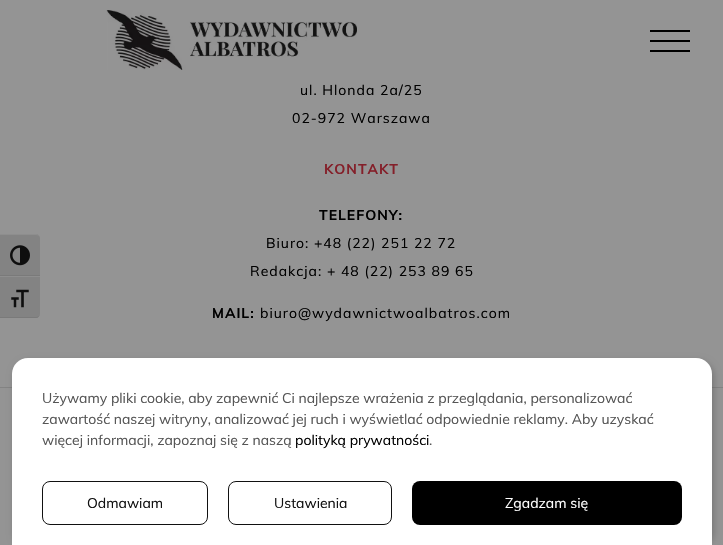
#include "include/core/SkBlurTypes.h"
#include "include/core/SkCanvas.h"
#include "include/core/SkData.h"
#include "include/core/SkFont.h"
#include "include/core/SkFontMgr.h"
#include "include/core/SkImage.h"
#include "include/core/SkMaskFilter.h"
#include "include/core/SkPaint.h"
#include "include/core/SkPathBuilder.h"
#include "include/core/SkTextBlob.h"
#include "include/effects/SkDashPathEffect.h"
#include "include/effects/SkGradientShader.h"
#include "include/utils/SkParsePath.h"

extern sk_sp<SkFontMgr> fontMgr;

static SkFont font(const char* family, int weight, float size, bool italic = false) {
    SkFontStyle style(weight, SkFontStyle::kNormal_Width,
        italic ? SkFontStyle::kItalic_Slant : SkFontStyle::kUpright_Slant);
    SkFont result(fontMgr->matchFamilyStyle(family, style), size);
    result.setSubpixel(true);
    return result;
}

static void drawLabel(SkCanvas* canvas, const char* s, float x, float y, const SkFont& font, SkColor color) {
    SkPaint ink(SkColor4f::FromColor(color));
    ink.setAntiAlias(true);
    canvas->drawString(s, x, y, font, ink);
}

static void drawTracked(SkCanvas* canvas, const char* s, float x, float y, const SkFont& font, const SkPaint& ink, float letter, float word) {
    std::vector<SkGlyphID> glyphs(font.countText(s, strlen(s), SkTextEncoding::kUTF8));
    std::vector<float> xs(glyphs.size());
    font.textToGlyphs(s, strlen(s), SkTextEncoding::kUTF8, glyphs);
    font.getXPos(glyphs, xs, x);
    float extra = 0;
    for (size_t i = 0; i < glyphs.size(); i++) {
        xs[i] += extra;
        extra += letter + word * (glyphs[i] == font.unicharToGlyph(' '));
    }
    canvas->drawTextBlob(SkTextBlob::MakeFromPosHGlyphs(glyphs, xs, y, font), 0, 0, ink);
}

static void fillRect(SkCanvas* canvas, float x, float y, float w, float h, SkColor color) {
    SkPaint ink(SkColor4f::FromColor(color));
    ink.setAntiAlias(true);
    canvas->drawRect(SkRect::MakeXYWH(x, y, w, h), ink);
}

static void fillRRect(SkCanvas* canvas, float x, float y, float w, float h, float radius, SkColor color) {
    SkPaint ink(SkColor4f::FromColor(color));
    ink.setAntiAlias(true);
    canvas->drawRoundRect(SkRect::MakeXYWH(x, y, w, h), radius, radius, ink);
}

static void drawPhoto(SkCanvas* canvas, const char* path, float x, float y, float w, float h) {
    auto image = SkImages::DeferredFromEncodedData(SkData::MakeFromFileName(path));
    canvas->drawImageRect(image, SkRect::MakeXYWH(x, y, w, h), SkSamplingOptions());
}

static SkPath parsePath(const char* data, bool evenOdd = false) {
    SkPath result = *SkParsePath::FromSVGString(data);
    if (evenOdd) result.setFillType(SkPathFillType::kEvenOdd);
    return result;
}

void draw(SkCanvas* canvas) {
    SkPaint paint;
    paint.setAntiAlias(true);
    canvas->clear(0xFF949494);
    drawPhoto(canvas, "assets/img1.png", 106, 10, 251, 60);
    fillRect(canvas, 650, 30, 40, 2, 0xFF000000);
    fillRect(canvas, 650, 40, 40, 2, 0xFF000000);
    fillRect(canvas, 650, 50, 40, 2, 0xFF000000);
    paint.setColor(0xFF838383);
    canvas->drawPath(parsePath("M0 234H36C38 234 40 236 40 238V276H0Z"), paint);
    paint.setColor(0xFF8E8E8E);
    canvas->drawPath(parsePath("M0 234V235H36C38 235 40 236 40 238C40 236 38 234 36 234Z"), paint);
    fillRect(canvas, 0, 275, 40, 1, 0xFF7A7A7A);
    drawPhoto(canvas, "assets/img2.png", 10, 245, 20, 21);
    paint.setColor(0xFF838383);
    canvas->drawPath(parsePath("M0 276H40V314C40 316 38 318 36 318H0Z"), paint);
    fillRect(canvas, 0, 276, 40, 1, 0xFF8E8E8E);
    paint.setColor(0xFF7A7A7A);
    canvas->drawPath(parsePath("M0 317V318H36C38 318 40 316 40 314C40 316 38 317 36 317Z"), paint);
    drawPhoto(canvas, "assets/img3.png", 11, 289, 18, 19);
    SkFont font1 = font("Muli", 400, 14);
    paint.setColor(0xFF000000);
    drawTracked(canvas, "ul. Hlonda 2a/25", 300, 95, font1, paint, 1, 0);
    drawTracked(canvas, "02-972 Warszawa", 292, 123, font1, paint, 1, 0);
    SkFont font2 = font("Muli", 700, 14);
    paint.setColor(0xFF84202A);
    drawTracked(canvas, "KONTAKT", 324, 174, font2, paint, 1, 0);
    paint.setColor(0xFF000000);
    drawTracked(canvas, "TELEFONY:", 319, 220, font2, paint, 1, 0);
    drawTracked(canvas, "Biuro: +48 (22) 251 22 72", 266, 248, font1, paint, 1, 0);
    drawTracked(canvas, "Redakcja: + 48 (22) 253 89 65", 250, 276, font1, paint, 1, 0);
    drawTracked(canvas, "MAIL:", 212, 318, font2, paint, 1, 0);
    drawTracked(canvas, "biuro@wydawnictwoalbatros.com", 260, 318, font1, paint, 1, 0);
    fillRect(canvas, 0, 387, 723, 1, 0xFF838383);
    paint.setColor(0x33000000);
    paint.setMaskFilter(SkMaskFilter::MakeBlur(kNormal_SkBlurStyle, 3.5f));
    canvas->drawRoundRect(SkRect::MakeXYWH(14, 361, 700, 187), 16, 16, paint);
    paint.setMaskFilter(nullptr);
    paint.setColor(0xFFFFFFFF);
    canvas->drawPath(parsePath("M28 358H696C705 358 712 365 712 374V545H12V374C12 365 19 358 28 358Z"), paint);
    drawLabel(canvas, "Używamy pliki cookie, aby zapewnić Ci najlepsze wrażenia z przeglądania, personalizować", 42, 403, font1, 0xFF555555);
    drawLabel(canvas, "zawartość naszej witryny, analizować jej ruch i wyświetlać odpowiednie reklamy. Aby uzyskać", 42, 424, font1, 0xFF555555);
    drawLabel(canvas, "więcej informacji, zapoznaj się z naszą", 42, 445, font1, 0xFF555555);
    drawLabel(canvas, "polityką prywatności", 295, 445, font1, 0xFF000000);
    drawLabel(canvas, ".", 429, 445, font1, 0xFF555555);
    paint.setStroke(true);
    paint.setStrokeWidth(1);
    paint.setColor(0xFF111111);
    canvas->drawRoundRect(SkRect::MakeXYWH(42.5f, 481.5f, 165, 43), 7.5f, 7.5f, paint);
    drawLabel(canvas, "Odmawiam", 87, 508, font1, 0xFF111111);
    canvas->drawRoundRect(SkRect::MakeXYWH(228.5f, 481.5f, 163, 43), 7.5f, 7.5f, paint);
    drawLabel(canvas, "Ustawienia", 274, 508, font1, 0xFF111111);
    fillRRect(canvas, 412, 481, 270, 44, 8, 0xFF000000);
    drawLabel(canvas, "Zgadzam się", 505, 508, font1, 0xFFFFFFFF);
}
